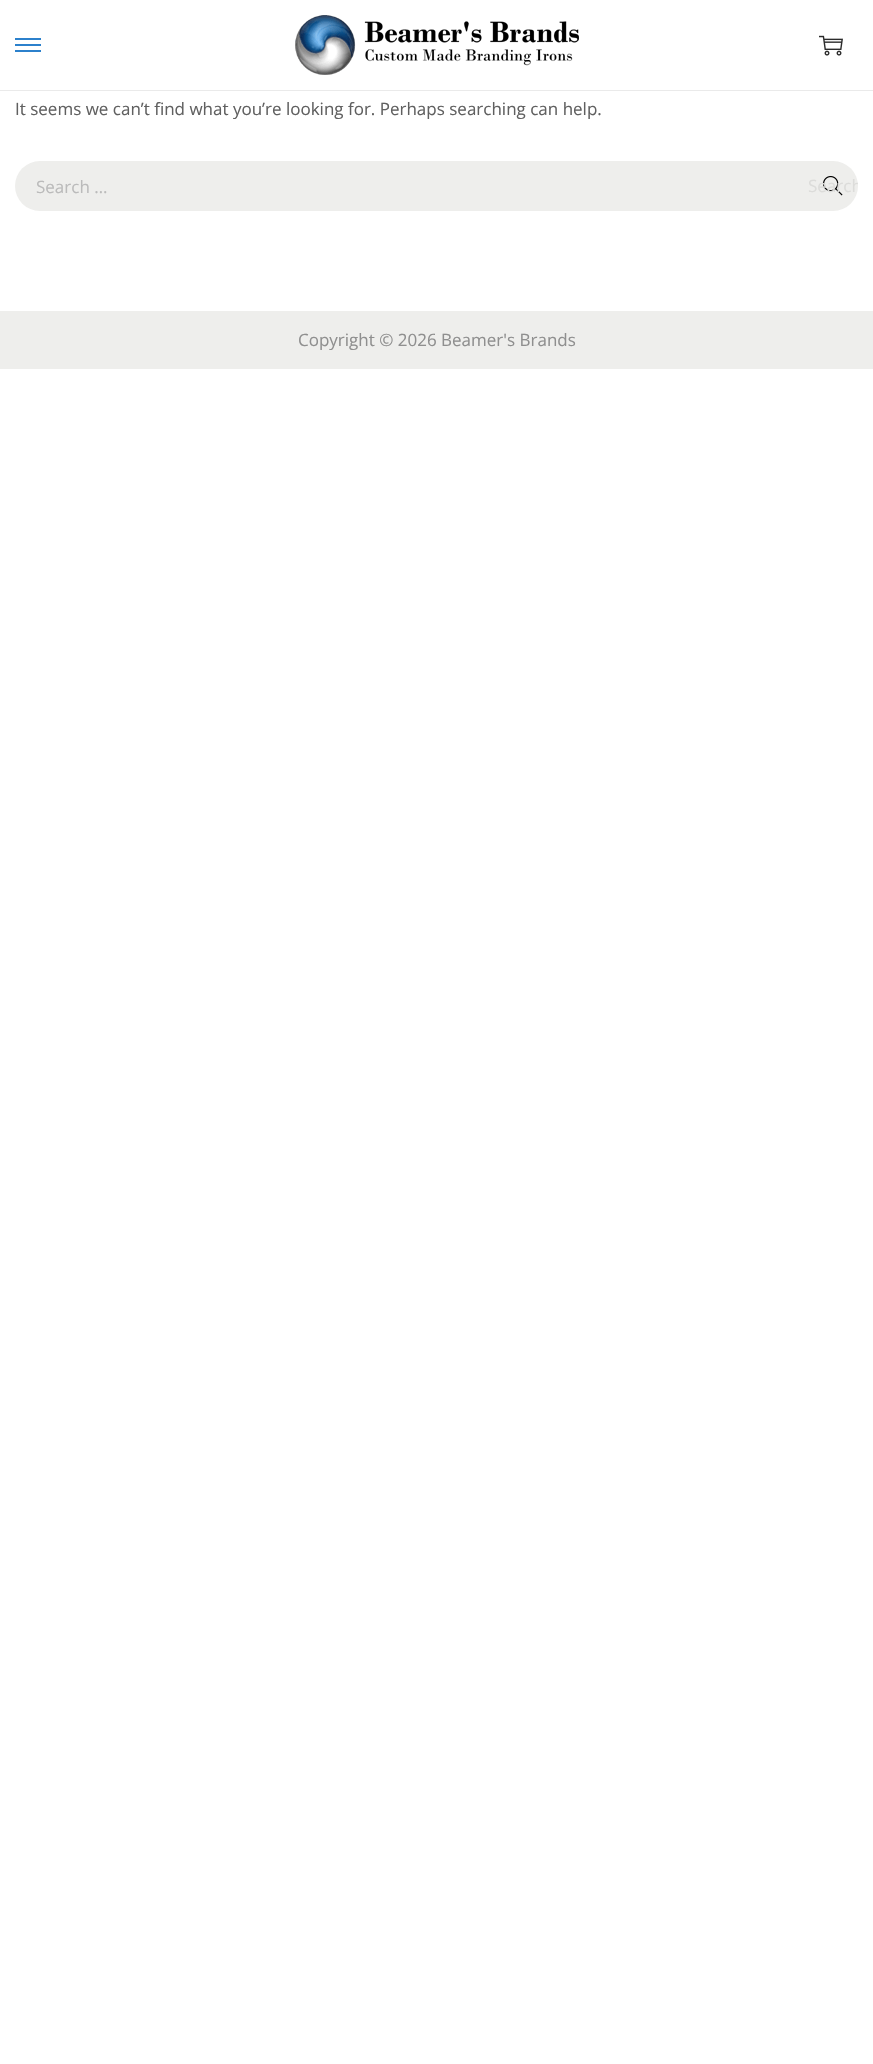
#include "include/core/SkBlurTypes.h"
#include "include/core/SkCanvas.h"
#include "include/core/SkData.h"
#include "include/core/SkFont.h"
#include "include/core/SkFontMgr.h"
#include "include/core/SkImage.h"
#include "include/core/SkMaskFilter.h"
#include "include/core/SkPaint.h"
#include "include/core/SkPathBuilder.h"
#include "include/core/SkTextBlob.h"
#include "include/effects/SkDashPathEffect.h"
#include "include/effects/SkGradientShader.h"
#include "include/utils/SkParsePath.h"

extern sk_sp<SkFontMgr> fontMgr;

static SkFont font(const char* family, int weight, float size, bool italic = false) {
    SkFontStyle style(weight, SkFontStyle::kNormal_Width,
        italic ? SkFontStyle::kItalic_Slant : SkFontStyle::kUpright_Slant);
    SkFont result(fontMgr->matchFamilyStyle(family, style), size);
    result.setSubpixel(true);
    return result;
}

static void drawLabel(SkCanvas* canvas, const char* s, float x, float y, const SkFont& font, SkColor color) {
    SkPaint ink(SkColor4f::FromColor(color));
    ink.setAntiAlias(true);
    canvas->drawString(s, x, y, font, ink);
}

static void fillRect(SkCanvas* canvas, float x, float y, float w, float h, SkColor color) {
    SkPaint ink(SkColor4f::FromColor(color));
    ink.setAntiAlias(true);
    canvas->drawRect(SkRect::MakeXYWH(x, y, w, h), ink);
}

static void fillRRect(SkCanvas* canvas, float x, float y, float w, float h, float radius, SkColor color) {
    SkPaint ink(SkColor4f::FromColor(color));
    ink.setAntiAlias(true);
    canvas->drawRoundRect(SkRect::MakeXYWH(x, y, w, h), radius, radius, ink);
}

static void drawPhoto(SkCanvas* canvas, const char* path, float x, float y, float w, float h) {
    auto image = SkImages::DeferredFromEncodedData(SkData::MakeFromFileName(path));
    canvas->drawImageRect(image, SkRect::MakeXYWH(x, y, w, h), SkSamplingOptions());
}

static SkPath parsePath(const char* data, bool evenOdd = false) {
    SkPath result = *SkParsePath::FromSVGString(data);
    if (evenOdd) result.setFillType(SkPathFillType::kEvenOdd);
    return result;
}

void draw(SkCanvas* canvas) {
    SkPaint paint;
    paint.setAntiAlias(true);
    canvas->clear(0xFFFFFFFF);
    fillRect(canvas, 0, 90, 873, 1, 0xFFEAEAEA);
    fillRect(canvas, 15, 44, 26, 2, 0xFF2C81CC);
    fillRect(canvas, 15, 38, 26, 2, 0xFF2C81CC);
    fillRect(canvas, 15, 50, 26, 2, 0xFF2C81CC);
    drawPhoto(canvas, "assets/img1.png", 295, 15, 284, 60);
    drawPhoto(canvas, "assets/img2.png", 819, 35, 24, 21);
    SkFont font1 = font("Open Sans", 400, 17);
    drawLabel(canvas, "It seems we can’t find what you’re looking for. Perhaps searching can help.", 15, 115, font1, 0xFF606060);
    fillRRect(canvas, 15, 161, 843, 50, 25, 0xFFEEEEEC);
    drawPhoto(canvas, "assets/img3.png", 823, 176, 20, 20);
    drawLabel(canvas, "Search …", 36, 193, font1, 0xFFBBBBBB);
    canvas->save();
    canvas->clipPath(parsePath("M833 161C847 161 858 172 858 186C858 200 847 211 833 211C819 211 808 200 808 186C808 172 819 161 833 161Z"), true);
    drawLabel(canvas, "Search", 808, 192, font1, 0xFFDCDCDA);
    canvas->restore();
    fillRect(canvas, 0, 311, 873, 58, 0xFFEEEEEC);
    drawLabel(canvas, "Copyright © 2026 Beamer's Brands", 298, 346, font1, 0xFF8F8F8F);
}
